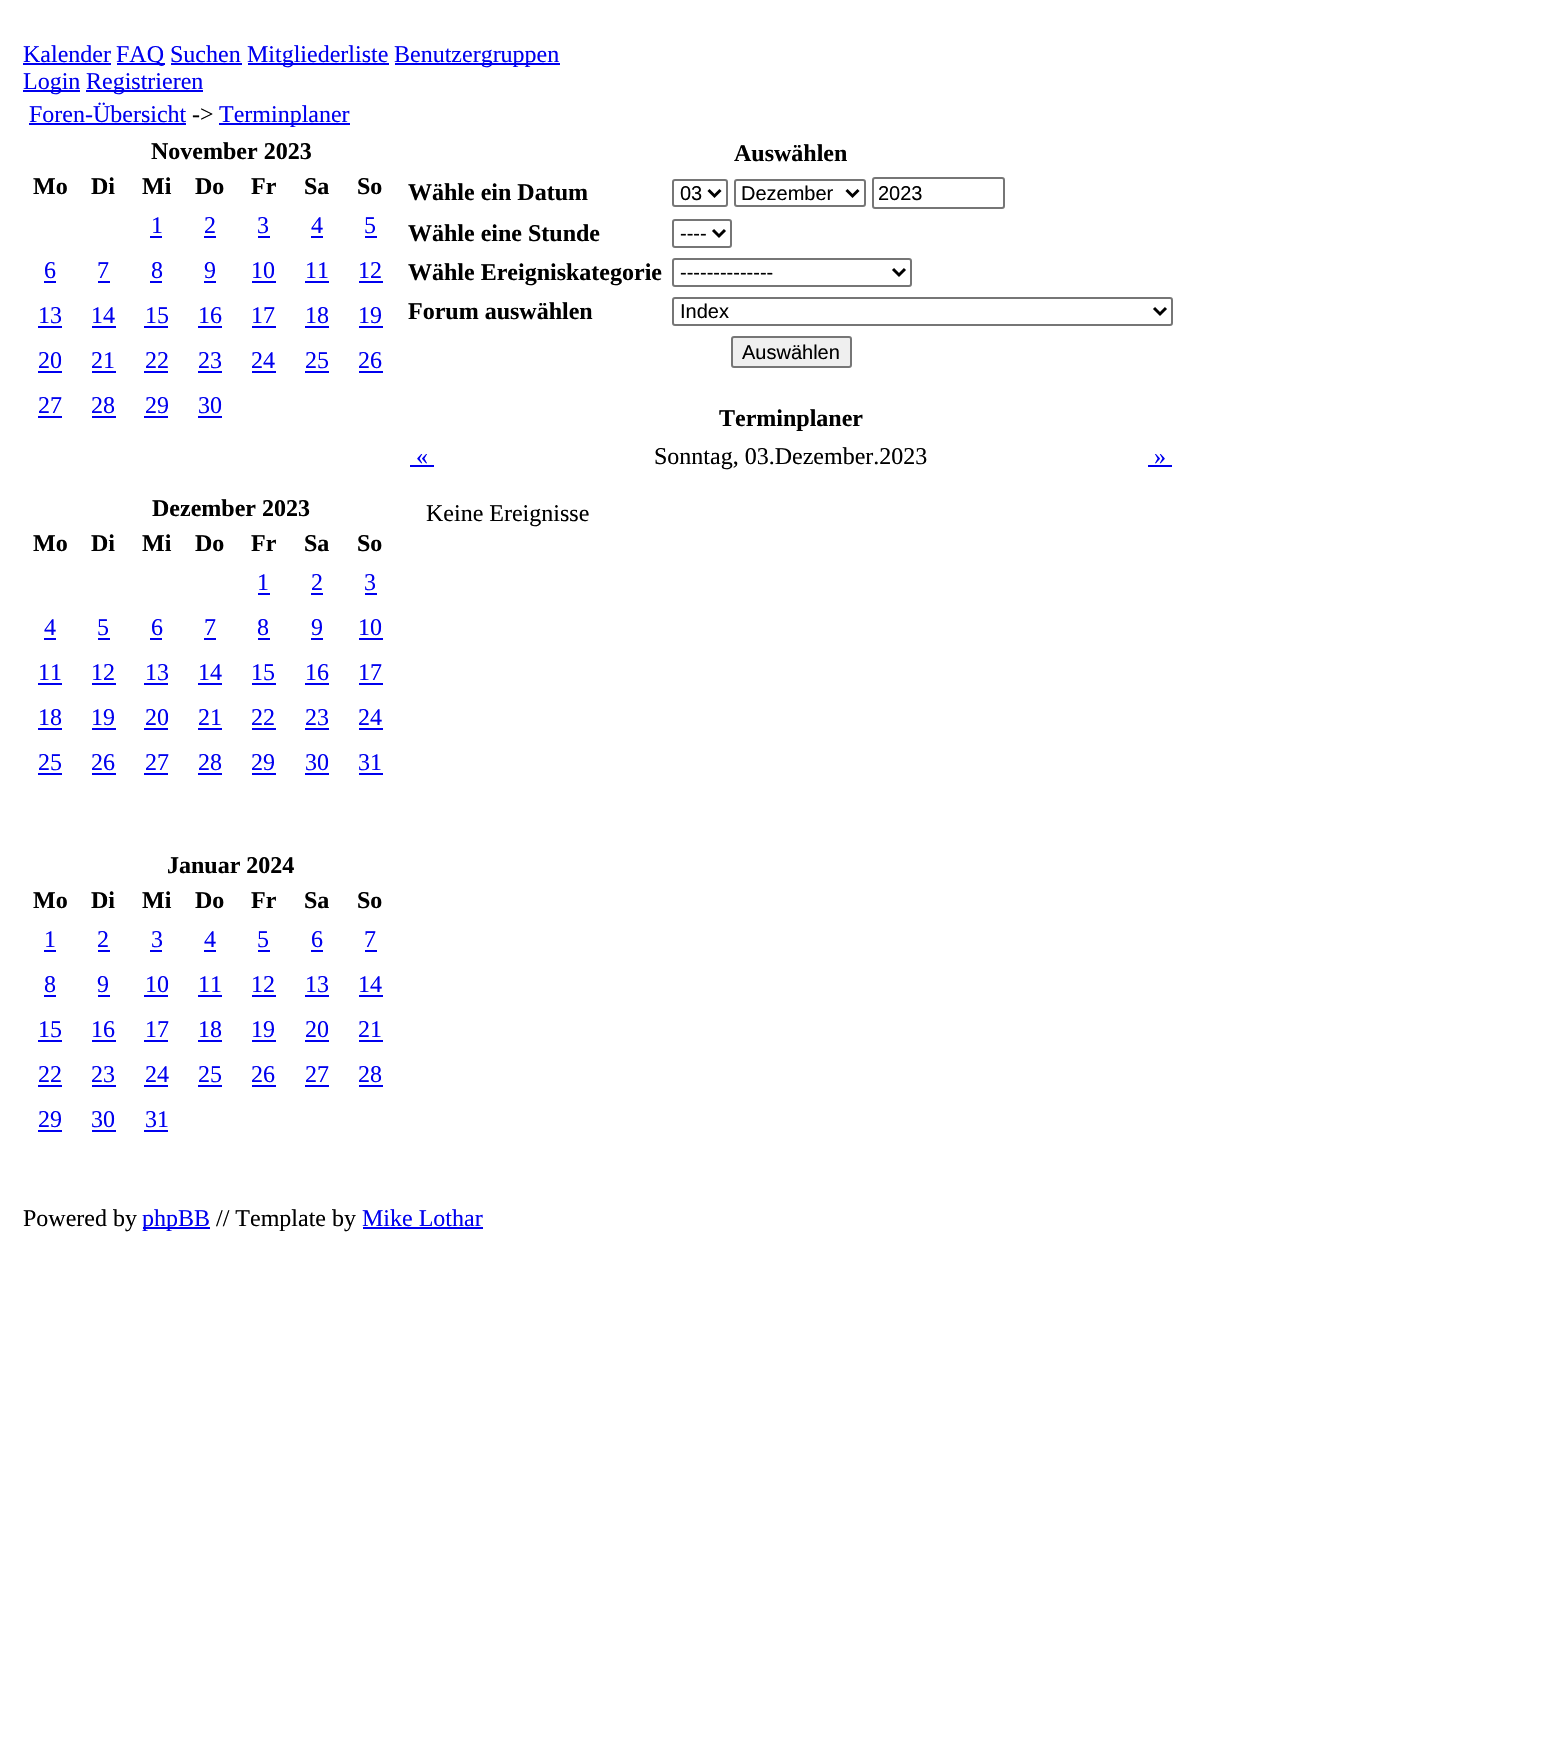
#include "include/core/SkBlurTypes.h"
#include "include/core/SkCanvas.h"
#include "include/core/SkData.h"
#include "include/core/SkFont.h"
#include "include/core/SkFontMgr.h"
#include "include/core/SkImage.h"
#include "include/core/SkMaskFilter.h"
#include "include/core/SkPaint.h"
#include "include/core/SkPathBuilder.h"
#include "include/core/SkTextBlob.h"
#include "include/effects/SkDashPathEffect.h"
#include "include/effects/SkGradientShader.h"
#include "include/utils/SkParsePath.h"

extern sk_sp<SkFontMgr> fontMgr;

static SkFont font(const char* family, int weight, float size, bool italic = false) {
    SkFontStyle style(weight, SkFontStyle::kNormal_Width,
        italic ? SkFontStyle::kItalic_Slant : SkFontStyle::kUpright_Slant);
    SkFont result(fontMgr->matchFamilyStyle(family, style), size);
    result.setSubpixel(true);
    return result;
}

static void drawLabel(SkCanvas* canvas, const char* s, float x, float y, const SkFont& font, SkColor color) {
    SkPaint ink(SkColor4f::FromColor(color));
    ink.setAntiAlias(true);
    canvas->drawString(s, x, y, font, ink);
}

static void fillRect(SkCanvas* canvas, float x, float y, float w, float h, SkColor color) {
    SkPaint ink(SkColor4f::FromColor(color));
    ink.setAntiAlias(true);
    canvas->drawRect(SkRect::MakeXYWH(x, y, w, h), ink);
}

static SkPath parsePath(const char* data, bool evenOdd = false) {
    SkPath result = *SkParsePath::FromSVGString(data);
    if (evenOdd) result.setFillType(SkPathFillType::kEvenOdd);
    return result;
}

void draw(SkCanvas* canvas) {
    SkPaint paint;
    paint.setAntiAlias(true);
    canvas->clear(0xFFFFFFFF);
    SkFont font1 = font("Liberation Serif", 400, 24);
    drawLabel(canvas, "Kalender", 23, 62, font1, 0xFF0000EE);
    fillRect(canvas, 23, 63, 88, 2, 0xFF0000EE);
    fillRect(canvas, 117, 63, 48, 2, 0xFF0000EE);
    drawLabel(canvas, "FAQ Suchen", 116, 62, font1, 0xFF0000EE);
    fillRect(canvas, 248, 63, 141, 2, 0xFF0000EE);
    drawLabel(canvas, "Mitgliederliste", 247, 62, font1, 0xFF0000EE);
    fillRect(canvas, 395, 63, 165, 2, 0xFF0000EE);
    drawLabel(canvas, "Benutzergruppen", 394, 62, font1, 0xFF0000EE);
    fillRect(canvas, 171, 63, 71, 2, 0xFF0000EE);
    fillRect(canvas, 23, 90, 57, 2, 0xFF0000EE);
    drawLabel(canvas, "Login", 23, 89, font1, 0xFF0000EE);
    fillRect(canvas, 86, 90, 117, 2, 0xFF0000EE);
    drawLabel(canvas, "Registrieren", 86, 89, font1, 0xFF0000EE);
    drawLabel(canvas, "Foren-Übersicht", 29, 122, font1, 0xFF0000EE);
    fillRect(canvas, 29, 123, 157, 2, 0xFF0000EE);
    drawLabel(canvas, "->", 192, 122, font1, 0xFF000000);
    fillRect(canvas, 219, 123, 131, 2, 0xFF0000EE);
    drawLabel(canvas, "Terminplaner", 219, 122, font1, 0xFF0000EE);
    SkFont font2 = font("Liberation Serif", 700, 24);
    drawLabel(canvas, "November 2023", 151, 159, font2, 0xFF000000);
    drawLabel(canvas, "Mo", 33, 194, font2, 0xFF000000);
    drawLabel(canvas, "Di", 91, 194, font2, 0xFF000000);
    drawLabel(canvas, "Mi", 142, 194, font2, 0xFF000000);
    drawLabel(canvas, "Do", 195, 194, font2, 0xFF000000);
    drawLabel(canvas, "Fr", 251, 194, font2, 0xFF000000);
    drawLabel(canvas, "Sa", 304, 194, font2, 0xFF000000);
    drawLabel(canvas, "So", 357, 194, font2, 0xFF000000);
    drawLabel(canvas, "1", 151, 233, font1, 0xFF0000EE);
    fillRect(canvas, 150, 236, 12, 2, 0xFF0000EE);
    drawLabel(canvas, "2", 204, 233, font1, 0xFF0000EE);
    fillRect(canvas, 204, 236, 12, 2, 0xFF0000EE);
    drawLabel(canvas, "3", 257, 233, font1, 0xFF0000EE);
    fillRect(canvas, 258, 236, 12, 2, 0xFF0000EE);
    drawLabel(canvas, "4", 311, 233, font1, 0xFF0000EE);
    fillRect(canvas, 311, 236, 12, 2, 0xFF0000EE);
    drawLabel(canvas, "5", 364, 233, font1, 0xFF0000EE);
    fillRect(canvas, 365, 236, 12, 2, 0xFF0000EE);
    drawLabel(canvas, "6", 44, 278, font1, 0xFF0000EE);
    fillRect(canvas, 44, 281, 12, 2, 0xFF0000EE);
    drawLabel(canvas, "7", 97, 278, font1, 0xFF0000EE);
    fillRect(canvas, 98, 281, 12, 2, 0xFF0000EE);
    drawLabel(canvas, "8", 151, 278, font1, 0xFF0000EE);
    fillRect(canvas, 150, 281, 12, 2, 0xFF0000EE);
    drawLabel(canvas, "9", 204, 278, font1, 0xFF0000EE);
    fillRect(canvas, 204, 281, 12, 2, 0xFF0000EE);
    drawLabel(canvas, "10", 251, 278, font1, 0xFF0000EE);
    fillRect(canvas, 252, 281, 24, 2, 0xFF0000EE);
    drawLabel(canvas, "11", 305, 278, font1, 0xFF0000EE);
    fillRect(canvas, 305, 281, 24, 2, 0xFF0000EE);
    drawLabel(canvas, "12", 358, 278, font1, 0xFF0000EE);
    fillRect(canvas, 359, 281, 24, 2, 0xFF0000EE);
    drawLabel(canvas, "13", 38, 323, font1, 0xFF0000EE);
    fillRect(canvas, 38, 326, 24, 2, 0xFF0000EE);
    drawLabel(canvas, "14", 91, 323, font1, 0xFF0000EE);
    fillRect(canvas, 92, 326, 24, 2, 0xFF0000EE);
    drawLabel(canvas, "15", 145, 323, font1, 0xFF0000EE);
    fillRect(canvas, 144, 326, 24, 2, 0xFF0000EE);
    drawLabel(canvas, "16", 198, 323, font1, 0xFF0000EE);
    fillRect(canvas, 198, 326, 24, 2, 0xFF0000EE);
    drawLabel(canvas, "17", 251, 323, font1, 0xFF0000EE);
    fillRect(canvas, 252, 326, 24, 2, 0xFF0000EE);
    drawLabel(canvas, "18", 305, 323, font1, 0xFF0000EE);
    fillRect(canvas, 305, 326, 24, 2, 0xFF0000EE);
    drawLabel(canvas, "19", 358, 323, font1, 0xFF0000EE);
    fillRect(canvas, 359, 326, 24, 2, 0xFF0000EE);
    drawLabel(canvas, "20", 38, 368, font1, 0xFF0000EE);
    fillRect(canvas, 38, 371, 24, 2, 0xFF0000EE);
    drawLabel(canvas, "21", 91, 368, font1, 0xFF0000EE);
    fillRect(canvas, 92, 371, 24, 2, 0xFF0000EE);
    drawLabel(canvas, "22", 145, 368, font1, 0xFF0000EE);
    fillRect(canvas, 144, 371, 24, 2, 0xFF0000EE);
    drawLabel(canvas, "23", 198, 368, font1, 0xFF0000EE);
    fillRect(canvas, 198, 371, 24, 2, 0xFF0000EE);
    drawLabel(canvas, "24", 251, 368, font1, 0xFF0000EE);
    fillRect(canvas, 252, 371, 24, 2, 0xFF0000EE);
    drawLabel(canvas, "25", 305, 368, font1, 0xFF0000EE);
    fillRect(canvas, 305, 371, 24, 2, 0xFF0000EE);
    drawLabel(canvas, "26", 358, 368, font1, 0xFF0000EE);
    fillRect(canvas, 359, 371, 24, 2, 0xFF0000EE);
    drawLabel(canvas, "27", 38, 413, font1, 0xFF0000EE);
    fillRect(canvas, 38, 416, 24, 2, 0xFF0000EE);
    drawLabel(canvas, "28", 91, 413, font1, 0xFF0000EE);
    fillRect(canvas, 92, 416, 24, 2, 0xFF0000EE);
    drawLabel(canvas, "29", 145, 413, font1, 0xFF0000EE);
    fillRect(canvas, 144, 416, 24, 2, 0xFF0000EE);
    drawLabel(canvas, "30", 198, 413, font1, 0xFF0000EE);
    fillRect(canvas, 198, 416, 24, 2, 0xFF0000EE);
    drawLabel(canvas, "Dezember 2023", 152, 516, font2, 0xFF000000);
    drawLabel(canvas, "Mo", 33, 551, font2, 0xFF000000);
    drawLabel(canvas, "Di", 91, 551, font2, 0xFF000000);
    drawLabel(canvas, "Mi", 142, 551, font2, 0xFF000000);
    drawLabel(canvas, "Do", 195, 551, font2, 0xFF000000);
    drawLabel(canvas, "Fr", 251, 551, font2, 0xFF000000);
    drawLabel(canvas, "Sa", 304, 551, font2, 0xFF000000);
    drawLabel(canvas, "So", 357, 551, font2, 0xFF000000);
    drawLabel(canvas, "1", 257, 590, font1, 0xFF0000EE);
    fillRect(canvas, 258, 593, 12, 2, 0xFF0000EE);
    drawLabel(canvas, "2", 311, 590, font1, 0xFF0000EE);
    fillRect(canvas, 311, 593, 12, 2, 0xFF0000EE);
    drawLabel(canvas, "3", 364, 590, font1, 0xFF0000EE);
    fillRect(canvas, 365, 593, 12, 2, 0xFF0000EE);
    drawLabel(canvas, "4", 44, 635, font1, 0xFF0000EE);
    fillRect(canvas, 44, 638, 12, 2, 0xFF0000EE);
    drawLabel(canvas, "5", 97, 635, font1, 0xFF0000EE);
    fillRect(canvas, 98, 638, 12, 2, 0xFF0000EE);
    drawLabel(canvas, "6", 151, 635, font1, 0xFF0000EE);
    fillRect(canvas, 150, 638, 12, 2, 0xFF0000EE);
    drawLabel(canvas, "7", 204, 635, font1, 0xFF0000EE);
    fillRect(canvas, 204, 638, 12, 2, 0xFF0000EE);
    drawLabel(canvas, "8", 257, 635, font1, 0xFF0000EE);
    fillRect(canvas, 258, 638, 12, 2, 0xFF0000EE);
    drawLabel(canvas, "9", 311, 635, font1, 0xFF0000EE);
    fillRect(canvas, 311, 638, 12, 2, 0xFF0000EE);
    drawLabel(canvas, "10", 358, 635, font1, 0xFF0000EE);
    fillRect(canvas, 359, 638, 24, 2, 0xFF0000EE);
    drawLabel(canvas, "11", 38, 680, font1, 0xFF0000EE);
    fillRect(canvas, 38, 683, 24, 2, 0xFF0000EE);
    drawLabel(canvas, "12", 91, 680, font1, 0xFF0000EE);
    fillRect(canvas, 92, 683, 24, 2, 0xFF0000EE);
    drawLabel(canvas, "13", 145, 680, font1, 0xFF0000EE);
    fillRect(canvas, 144, 683, 24, 2, 0xFF0000EE);
    drawLabel(canvas, "14", 198, 680, font1, 0xFF0000EE);
    fillRect(canvas, 198, 683, 24, 2, 0xFF0000EE);
    drawLabel(canvas, "15", 251, 680, font1, 0xFF0000EE);
    fillRect(canvas, 252, 683, 24, 2, 0xFF0000EE);
    drawLabel(canvas, "16", 305, 680, font1, 0xFF0000EE);
    fillRect(canvas, 305, 683, 24, 2, 0xFF0000EE);
    drawLabel(canvas, "17", 358, 680, font1, 0xFF0000EE);
    fillRect(canvas, 359, 683, 24, 2, 0xFF0000EE);
    drawLabel(canvas, "18", 38, 725, font1, 0xFF0000EE);
    fillRect(canvas, 38, 728, 24, 2, 0xFF0000EE);
    drawLabel(canvas, "19", 91, 725, font1, 0xFF0000EE);
    fillRect(canvas, 92, 728, 24, 2, 0xFF0000EE);
    drawLabel(canvas, "20", 145, 725, font1, 0xFF0000EE);
    fillRect(canvas, 144, 728, 24, 2, 0xFF0000EE);
    drawLabel(canvas, "21", 198, 725, font1, 0xFF0000EE);
    fillRect(canvas, 198, 728, 24, 2, 0xFF0000EE);
    drawLabel(canvas, "22", 251, 725, font1, 0xFF0000EE);
    fillRect(canvas, 252, 728, 24, 2, 0xFF0000EE);
    drawLabel(canvas, "23", 305, 725, font1, 0xFF0000EE);
    fillRect(canvas, 305, 728, 24, 2, 0xFF0000EE);
    drawLabel(canvas, "24", 358, 725, font1, 0xFF0000EE);
    fillRect(canvas, 359, 728, 24, 2, 0xFF0000EE);
    drawLabel(canvas, "25", 38, 770, font1, 0xFF0000EE);
    fillRect(canvas, 38, 773, 24, 2, 0xFF0000EE);
    drawLabel(canvas, "26", 91, 770, font1, 0xFF0000EE);
    fillRect(canvas, 92, 773, 24, 2, 0xFF0000EE);
    drawLabel(canvas, "27", 145, 770, font1, 0xFF0000EE);
    fillRect(canvas, 144, 773, 24, 2, 0xFF0000EE);
    drawLabel(canvas, "28", 198, 770, font1, 0xFF0000EE);
    fillRect(canvas, 198, 773, 24, 2, 0xFF0000EE);
    drawLabel(canvas, "29", 251, 770, font1, 0xFF0000EE);
    fillRect(canvas, 252, 773, 24, 2, 0xFF0000EE);
    drawLabel(canvas, "30", 305, 770, font1, 0xFF0000EE);
    fillRect(canvas, 305, 773, 24, 2, 0xFF0000EE);
    drawLabel(canvas, "31", 358, 770, font1, 0xFF0000EE);
    fillRect(canvas, 359, 773, 24, 2, 0xFF0000EE);
    drawLabel(canvas, "Januar 2024", 167, 873, font2, 0xFF000000);
    drawLabel(canvas, "Mo", 33, 908, font2, 0xFF000000);
    drawLabel(canvas, "Di", 91, 908, font2, 0xFF000000);
    drawLabel(canvas, "Mi", 142, 908, font2, 0xFF000000);
    drawLabel(canvas, "Do", 195, 908, font2, 0xFF000000);
    drawLabel(canvas, "Fr", 251, 908, font2, 0xFF000000);
    drawLabel(canvas, "Sa", 304, 908, font2, 0xFF000000);
    drawLabel(canvas, "So", 357, 908, font2, 0xFF000000);
    drawLabel(canvas, "1", 44, 947, font1, 0xFF0000EE);
    fillRect(canvas, 44, 950, 12, 2, 0xFF0000EE);
    drawLabel(canvas, "2", 97, 947, font1, 0xFF0000EE);
    fillRect(canvas, 98, 950, 12, 2, 0xFF0000EE);
    drawLabel(canvas, "3", 151, 947, font1, 0xFF0000EE);
    fillRect(canvas, 150, 950, 12, 2, 0xFF0000EE);
    drawLabel(canvas, "4", 204, 947, font1, 0xFF0000EE);
    fillRect(canvas, 204, 950, 12, 2, 0xFF0000EE);
    drawLabel(canvas, "5", 257, 947, font1, 0xFF0000EE);
    fillRect(canvas, 258, 950, 12, 2, 0xFF0000EE);
    drawLabel(canvas, "6", 311, 947, font1, 0xFF0000EE);
    fillRect(canvas, 311, 950, 12, 2, 0xFF0000EE);
    drawLabel(canvas, "7", 364, 947, font1, 0xFF0000EE);
    fillRect(canvas, 365, 950, 12, 2, 0xFF0000EE);
    drawLabel(canvas, "8", 44, 992, font1, 0xFF0000EE);
    fillRect(canvas, 44, 995, 12, 2, 0xFF0000EE);
    drawLabel(canvas, "9", 97, 992, font1, 0xFF0000EE);
    fillRect(canvas, 98, 995, 12, 2, 0xFF0000EE);
    drawLabel(canvas, "10", 145, 992, font1, 0xFF0000EE);
    fillRect(canvas, 144, 995, 24, 2, 0xFF0000EE);
    drawLabel(canvas, "11", 198, 992, font1, 0xFF0000EE);
    fillRect(canvas, 198, 995, 24, 2, 0xFF0000EE);
    drawLabel(canvas, "12", 251, 992, font1, 0xFF0000EE);
    fillRect(canvas, 252, 995, 24, 2, 0xFF0000EE);
    drawLabel(canvas, "13", 305, 992, font1, 0xFF0000EE);
    fillRect(canvas, 305, 995, 24, 2, 0xFF0000EE);
    drawLabel(canvas, "14", 358, 992, font1, 0xFF0000EE);
    fillRect(canvas, 359, 995, 24, 2, 0xFF0000EE);
    drawLabel(canvas, "15", 38, 1037, font1, 0xFF0000EE);
    fillRect(canvas, 38, 1040, 24, 2, 0xFF0000EE);
    drawLabel(canvas, "16", 91, 1037, font1, 0xFF0000EE);
    fillRect(canvas, 92, 1040, 24, 2, 0xFF0000EE);
    drawLabel(canvas, "17", 145, 1037, font1, 0xFF0000EE);
    fillRect(canvas, 144, 1040, 24, 2, 0xFF0000EE);
    drawLabel(canvas, "18", 198, 1037, font1, 0xFF0000EE);
    fillRect(canvas, 198, 1040, 24, 2, 0xFF0000EE);
    drawLabel(canvas, "19", 251, 1037, font1, 0xFF0000EE);
    fillRect(canvas, 252, 1040, 24, 2, 0xFF0000EE);
    drawLabel(canvas, "20", 305, 1037, font1, 0xFF0000EE);
    fillRect(canvas, 305, 1040, 24, 2, 0xFF0000EE);
    drawLabel(canvas, "21", 358, 1037, font1, 0xFF0000EE);
    fillRect(canvas, 359, 1040, 24, 2, 0xFF0000EE);
    drawLabel(canvas, "22", 38, 1082, font1, 0xFF0000EE);
    fillRect(canvas, 38, 1085, 24, 2, 0xFF0000EE);
    drawLabel(canvas, "23", 91, 1082, font1, 0xFF0000EE);
    fillRect(canvas, 92, 1085, 24, 2, 0xFF0000EE);
    drawLabel(canvas, "24", 145, 1082, font1, 0xFF0000EE);
    fillRect(canvas, 144, 1085, 24, 2, 0xFF0000EE);
    drawLabel(canvas, "25", 198, 1082, font1, 0xFF0000EE);
    fillRect(canvas, 198, 1085, 24, 2, 0xFF0000EE);
    drawLabel(canvas, "26", 251, 1082, font1, 0xFF0000EE);
    fillRect(canvas, 252, 1085, 24, 2, 0xFF0000EE);
    drawLabel(canvas, "27", 305, 1082, font1, 0xFF0000EE);
    fillRect(canvas, 305, 1085, 24, 2, 0xFF0000EE);
    drawLabel(canvas, "28", 358, 1082, font1, 0xFF0000EE);
    fillRect(canvas, 359, 1085, 24, 2, 0xFF0000EE);
    drawLabel(canvas, "29", 38, 1127, font1, 0xFF0000EE);
    fillRect(canvas, 38, 1130, 24, 2, 0xFF0000EE);
    drawLabel(canvas, "30", 91, 1127, font1, 0xFF0000EE);
    fillRect(canvas, 92, 1130, 24, 2, 0xFF0000EE);
    drawLabel(canvas, "31", 145, 1127, font1, 0xFF0000EE);
    fillRect(canvas, 144, 1130, 24, 2, 0xFF0000EE);
    drawLabel(canvas, "Auswählen", 734, 161, font2, 0xFF000000);
    drawLabel(canvas, "Wähle ein Datum", 408, 200, font2, 0xFF000000);
    paint.setStroke(true);
    paint.setStrokeWidth(2);
    paint.setColor(0xFF767676);
    canvas->drawRoundRect(SkRect::MakeXYWH(673, 180, 54, 26), 2, 2, paint);
    paint.setStrokeWidth(3);
    paint.setColor(0xFF000000);
    canvas->drawPath(parsePath("M708.5 190L714.5 196L720.5 190"), paint);
    SkFont font3 = font("Liberation Sans", 400, 20);
    drawLabel(canvas, "03", 680, 200, font3, 0xFF000000);
    paint.setStrokeWidth(2);
    paint.setColor(0xFF767676);
    canvas->drawRoundRect(SkRect::MakeXYWH(735, 180, 130, 26), 2, 2, paint);
    paint.setStrokeWidth(3);
    paint.setColor(0xFF000000);
    canvas->drawPath(parsePath("M846.5 190L852.5 196L858.5 190"), paint);
    drawLabel(canvas, "Dezember", 741, 200, font3, 0xFF000000);
    paint.setStrokeWidth(2);
    paint.setColor(0xFF767676);
    canvas->drawRoundRect(SkRect::MakeXYWH(873, 178, 131, 30), 2, 2, paint);
    drawLabel(canvas, "2023", 878, 200, font3, 0xFF000000);
    drawLabel(canvas, "Wähle eine Stunde", 408, 241, font2, 0xFF000000);
    canvas->drawRoundRect(SkRect::MakeXYWH(673, 220, 58, 27), 2, 2, paint);
    paint.setStrokeWidth(3);
    paint.setColor(0xFF000000);
    canvas->drawPath(parsePath("M713 230L719 236L725 230"), paint);
    drawLabel(canvas, "----", 680, 240, font3, 0xFF000000);
    drawLabel(canvas, "Wähle Ereigniskategorie", 408, 280, font2, 0xFF000000);
    paint.setStrokeWidth(2);
    paint.setColor(0xFF767676);
    canvas->drawRoundRect(SkRect::MakeXYWH(673, 259, 238, 27), 2, 2, paint);
    paint.setStrokeWidth(3);
    paint.setColor(0xFF000000);
    canvas->drawPath(parsePath("M893 269L899 275L905 269"), paint);
    drawLabel(canvas, "--------------", 680, 279, font3, 0xFF000000);
    drawLabel(canvas, "Forum auswählen", 408, 319, font2, 0xFF000000);
    paint.setStrokeWidth(2);
    paint.setColor(0xFF767676);
    canvas->drawRoundRect(SkRect::MakeXYWH(673, 298, 499, 27), 2, 2, paint);
    paint.setStrokeWidth(3);
    paint.setColor(0xFF000000);
    canvas->drawPath(parsePath("M1154 308L1160 314L1166 308"), paint);
    drawLabel(canvas, "Index", 680, 318, font3, 0xFF000000);
    paint.setStroke(false);
    paint.setColor(0xFFEFEFEF);
    canvas->drawRoundRect(SkRect::MakeXYWH(732, 337, 119, 30), 2, 2, paint);
    paint.setStroke(true);
    paint.setStrokeWidth(2);
    paint.setColor(0xFF767676);
    canvas->drawRoundRect(SkRect::MakeXYWH(732, 337, 119, 30), 2, 2, paint);
    drawLabel(canvas, "Auswählen", 742, 359, font3, 0xFF000000);
    drawLabel(canvas, "Terminplaner", 719, 426, font2, 0xFF000000);
    drawLabel(canvas, "«", 416, 464, font1, 0xFF0000EE);
    fillRect(canvas, 410, 465, 24, 2, 0xFF0000EE);
    drawLabel(canvas, "Sonntag, 03.Dezember.2023", 654, 464, font1, 0xFF000000);
    drawLabel(canvas, "»", 1154, 464, font1, 0xFF0000EE);
    fillRect(canvas, 1148, 465, 24, 2, 0xFF0000EE);
    drawLabel(canvas, "Keine Ereignisse", 426, 521, font1, 0xFF000000);
    drawLabel(canvas, "Powered by", 23, 1226, font1, 0xFF000000);
    fillRect(canvas, 143, 1227, 67, 2, 0xFF0000EE);
    drawLabel(canvas, "phpBB", 142, 1226, font1, 0xFF0000EE);
    drawLabel(canvas, "// Template by", 216, 1226, font1, 0xFF000000);
    drawLabel(canvas, "Mike Lothar", 362, 1226, font1, 0xFF0000EE);
    fillRect(canvas, 363, 1227, 120, 2, 0xFF0000EE);
}
